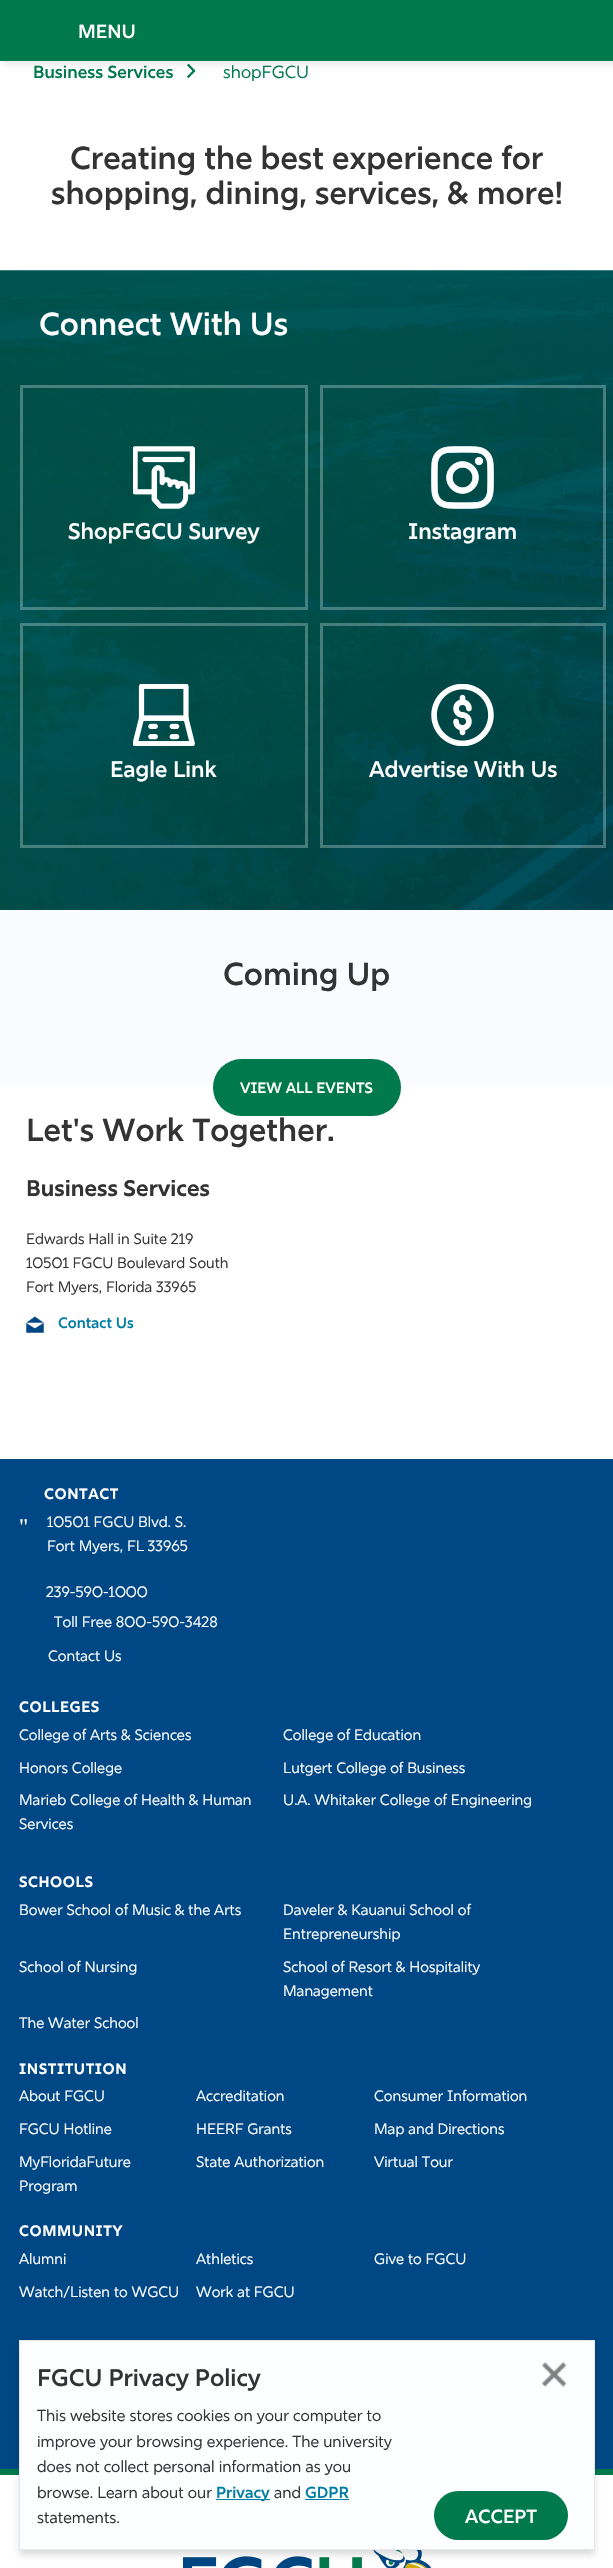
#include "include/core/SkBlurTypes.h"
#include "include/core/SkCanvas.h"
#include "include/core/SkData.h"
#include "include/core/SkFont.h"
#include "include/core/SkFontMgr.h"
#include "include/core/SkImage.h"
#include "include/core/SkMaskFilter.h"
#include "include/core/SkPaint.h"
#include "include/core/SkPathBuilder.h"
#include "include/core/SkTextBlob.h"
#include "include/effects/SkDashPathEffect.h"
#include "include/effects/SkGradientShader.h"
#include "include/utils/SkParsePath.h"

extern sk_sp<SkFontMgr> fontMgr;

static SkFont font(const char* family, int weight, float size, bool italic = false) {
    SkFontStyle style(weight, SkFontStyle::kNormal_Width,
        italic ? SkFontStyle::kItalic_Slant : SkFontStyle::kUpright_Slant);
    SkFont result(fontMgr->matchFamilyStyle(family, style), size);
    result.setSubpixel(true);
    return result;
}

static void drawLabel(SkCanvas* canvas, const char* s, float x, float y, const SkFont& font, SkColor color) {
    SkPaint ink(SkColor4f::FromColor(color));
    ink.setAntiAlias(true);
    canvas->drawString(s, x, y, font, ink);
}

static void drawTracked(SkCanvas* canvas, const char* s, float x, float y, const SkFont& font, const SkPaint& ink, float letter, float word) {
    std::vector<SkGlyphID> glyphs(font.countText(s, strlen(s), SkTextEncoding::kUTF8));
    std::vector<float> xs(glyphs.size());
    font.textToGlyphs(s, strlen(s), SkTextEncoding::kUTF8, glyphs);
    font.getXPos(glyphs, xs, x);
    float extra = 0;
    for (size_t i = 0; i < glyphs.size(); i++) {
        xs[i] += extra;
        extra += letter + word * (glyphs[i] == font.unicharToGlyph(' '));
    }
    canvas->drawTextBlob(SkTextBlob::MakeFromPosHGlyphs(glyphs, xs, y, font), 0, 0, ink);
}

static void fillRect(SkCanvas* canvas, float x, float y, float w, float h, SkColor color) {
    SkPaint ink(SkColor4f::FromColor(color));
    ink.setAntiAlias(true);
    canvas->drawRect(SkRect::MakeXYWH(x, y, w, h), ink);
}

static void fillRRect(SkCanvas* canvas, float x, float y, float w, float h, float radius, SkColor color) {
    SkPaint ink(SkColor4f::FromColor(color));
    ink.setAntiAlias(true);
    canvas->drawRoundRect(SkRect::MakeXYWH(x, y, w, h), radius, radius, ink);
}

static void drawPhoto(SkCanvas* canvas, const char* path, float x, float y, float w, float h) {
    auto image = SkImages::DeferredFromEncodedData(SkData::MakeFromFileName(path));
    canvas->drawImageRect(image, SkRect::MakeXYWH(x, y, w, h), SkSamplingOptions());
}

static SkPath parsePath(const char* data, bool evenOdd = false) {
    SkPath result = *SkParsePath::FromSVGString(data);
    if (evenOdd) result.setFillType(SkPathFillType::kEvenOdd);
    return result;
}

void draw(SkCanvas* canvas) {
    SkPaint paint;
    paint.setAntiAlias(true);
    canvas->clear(0xFFFFFFFF);
    drawPhoto(canvas, "assets/img1.png", 187, 63, 9, 15);
    paint.setColor(0x14000000);
    paint.setMaskFilter(SkMaskFilter::MakeBlur(kNormal_SkBlurStyle, 2.5f));
    canvas->drawRect(SkRect::MakeXYWH(4, 4, 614, 61), paint);
    paint.setMaskFilter(nullptr);
    fillRect(canvas, 0, 0, 613, 61, 0xFF00794C);
    SkFont font1 = font("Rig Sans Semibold", 600, 19);
    drawLabel(canvas, "MENU", 78, 38, font1, 0xFFFFFFFF);
    SkFont font2 = font("Rig Sans Semibold", 600, 17.5f);
    drawLabel(canvas, "Business Services", 33, 78, font2, 0xFF00794C);
    SkFont font3 = font("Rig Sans", 400, 17.5f);
    drawLabel(canvas, "shopFGCU", 223, 78, font3, 0xFF00794C);
    SkFont font4 = font("Rig Sans Semibold", 600, 31.9f);
    drawLabel(canvas, "Creating the best experience for", 70, 169, font4, 0xFF333333);
    drawLabel(canvas, "shopping, dining, services, & more!", 51, 204, font4, 0xFF333333);
    drawPhoto(canvas, "assets/img2.png", 0, 270, 613, 640);
    drawLabel(canvas, "Connect With Us", 39, 335, font4, 0xFFFFFFFF);
    paint.setStroke(true);
    paint.setStrokeWidth(3);
    paint.setColor(0x47FFFFFF);
    canvas->drawRect(SkRect::MakeXYWH(21.5f, 386.5f, 285, 222), paint);
    drawPhoto(canvas, "assets/img3.png", 133, 446, 62, 63);
    SkFont font5 = font("Rig Sans Semibold", 600, 22.5f);
    drawLabel(canvas, "ShopFGCU Survey", 68, 539, font5, 0xFFFFFFFF);
    canvas->drawRect(SkRect::MakeXYWH(321.5f, 386.5f, 283, 222), paint);
    drawPhoto(canvas, "assets/img4.png", 431, 446, 63, 63);
    drawLabel(canvas, "Instagram", 408, 539, font5, 0xFFFFFFFF);
    canvas->drawRect(SkRect::MakeXYWH(21.5f, 624.5f, 285, 222), paint);
    drawPhoto(canvas, "assets/img5.png", 133, 684, 62, 62);
    drawLabel(canvas, "Eagle Link", 110, 777, font5, 0xFFFFFFFF);
    canvas->drawRect(SkRect::MakeXYWH(321.5f, 624.5f, 283, 222), paint);
    drawPhoto(canvas, "assets/img6.png", 431, 684, 63, 62);
    drawLabel(canvas, "Advertise With Us", 369, 777, font5, 0xFFFFFFFF);
    fillRect(canvas, 0, 910, 613, 174, 0xFFF9FBFE);
    drawLabel(canvas, "Coming Up", 223, 985, font4, 0xFF333333);
    fillRRect(canvas, 213, 1059, 188, 57, 28.5f, 0xFF00794C);
    SkFont font6 = font("Rig Sans Semibold", 600, 15);
    drawLabel(canvas, "VIEW ALL EVENTS", 240, 1093, font6, 0xFFFFFFFF);
    drawLabel(canvas, "Let's Work Together.", 26, 1141, font4, 0xFF333333);
    SkFont font7 = font("Rig Sans", 700, 22.5f);
    drawLabel(canvas, "Business Services", 26, 1196, font7, 0xFF333333);
    SkFont font8 = font("Rig Sans", 400, 15);
    drawLabel(canvas, "Edwards Hall in Suite 219", 26, 1244, font8, 0xFF333333);
    drawLabel(canvas, "10501 FGCU Boulevard South", 26, 1268, font8, 0xFF333333);
    drawLabel(canvas, "Fort Myers, Florida 33965", 26, 1292, font8, 0xFF333333);
    drawPhoto(canvas, "assets/img7.png", 26, 1316, 18, 17);
    drawLabel(canvas, "Contact Us", 58, 1328, font6, 0xFF007DA3);
    fillRect(canvas, 0, 1459, 613, 1010, 0xFF004785);
    fillRect(canvas, 0, 2469, 613, 6, 0xFF00794C);
    SkFont font9 = font("Rig Sans", 700, 15);
    paint.setStroke(false);
    paint.setColor(0xFFFFFFFF);
    drawTracked(canvas, "CONTACT", 44, 1499, font9, paint, 0.6f, 0);
    SkFont font10 = font("Liberation Serif", 400, 22.5f);
    drawLabel(canvas, "\"", 19, 1534, font10, 0xFFFFFFFF);
    drawLabel(canvas, "10501 FGCU Blvd. S.", 47, 1527, font8, 0xFFFFFFFF);
    drawLabel(canvas, "Fort Myers, FL 33965", 47, 1551, font8, 0xFFFFFFFF);
    drawLabel(canvas, "239-590-1000", 46, 1597, font8, 0xFFFFFFFF);
    drawLabel(canvas, "Toll Free 800-590-3428", 54, 1627, font8, 0xFFFFFFFF);
    drawLabel(canvas, "Contact Us", 48, 1661, font8, 0xFFFFFFFF);
    drawTracked(canvas, "COLLEGES", 19, 1712, font9, paint, 0.6f, 0);
    drawLabel(canvas, "College of Arts & Sciences", 19, 1740, font8, 0xFFFFFFFF);
    drawLabel(canvas, "College of Education", 283, 1740, font8, 0xFFFFFFFF);
    drawLabel(canvas, "Honors College", 19, 1773, font8, 0xFFFFFFFF);
    drawLabel(canvas, "Lutgert College of Business", 283, 1773, font8, 0xFFFFFFFF);
    drawLabel(canvas, "Marieb College of Health & Human", 19, 1805, font8, 0xFFFFFFFF);
    drawLabel(canvas, "Services", 19, 1829, font8, 0xFFFFFFFF);
    drawLabel(canvas, "U.A. Whitaker College of Engineering", 283, 1805, font8, 0xFFFFFFFF);
    drawTracked(canvas, "SCHOOLS", 19, 1887, font9, paint, 0.6f, 0);
    drawLabel(canvas, "Bower School of Music & the Arts", 19, 1915, font8, 0xFFFFFFFF);
    drawLabel(canvas, "Daveler & Kauanui School of", 283, 1915, font8, 0xFFFFFFFF);
    drawLabel(canvas, "Entrepreneurship", 283, 1939, font8, 0xFFFFFFFF);
    drawLabel(canvas, "School of Nursing", 19, 1972, font8, 0xFFFFFFFF);
    drawLabel(canvas, "School of Resort & Hospitality", 283, 1972, font8, 0xFFFFFFFF);
    drawLabel(canvas, "Management", 283, 1996, font8, 0xFFFFFFFF);
    drawLabel(canvas, "The Water School", 19, 2028, font8, 0xFFFFFFFF);
    drawTracked(canvas, "INSTITUTION", 19, 2074, font9, paint, 0.6f, 0);
    drawLabel(canvas, "About FGCU", 19, 2101, font8, 0xFFFFFFFF);
    drawLabel(canvas, "Accreditation", 196, 2101, font8, 0xFFFFFFFF);
    drawLabel(canvas, "Consumer Information", 374, 2101, font8, 0xFFFFFFFF);
    drawLabel(canvas, "FGCU Hotline", 19, 2134, font8, 0xFFFFFFFF);
    drawLabel(canvas, "HEERF Grants", 196, 2134, font8, 0xFFFFFFFF);
    drawLabel(canvas, "Map and Directions", 374, 2134, font8, 0xFFFFFFFF);
    drawLabel(canvas, "MyFloridaFuture", 19, 2167, font8, 0xFFFFFFFF);
    drawLabel(canvas, "Program", 19, 2191, font8, 0xFFFFFFFF);
    drawLabel(canvas, "State Authorization", 196, 2167, font8, 0xFFFFFFFF);
    drawLabel(canvas, "Virtual Tour", 374, 2167, font8, 0xFFFFFFFF);
    drawTracked(canvas, "COMMUNITY", 19, 2236, font9, paint, 0.6f, 0);
    drawLabel(canvas, "Alumni", 19, 2264, font8, 0xFFFFFFFF);
    drawLabel(canvas, "Athletics", 196, 2264, font8, 0xFFFFFFFF);
    drawLabel(canvas, "Give to FGCU", 374, 2264, font8, 0xFFFFFFFF);
    drawLabel(canvas, "Watch/Listen to WGCU", 19, 2297, font8, 0xFFFFFFFF);
    drawLabel(canvas, "Work at FGCU", 196, 2297, font8, 0xFFFFFFFF);
    drawPhoto(canvas, "assets/img8.png", 183, 2550, 249, 18);
    fillRect(canvas, 20, 2341, 574, 208, 0xFFFCFEFF);
    canvas->save();
    canvas->clipPath(parsePath("M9 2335H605V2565H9ZM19 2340H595V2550H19Z", true), true);
    paint.setColor(0x21000000);
    paint.setMaskFilter(SkMaskFilter::MakeBlur(kNormal_SkBlurStyle, 3));
    canvas->drawRect(SkRect::MakeXYWH(19, 2345, 576, 210), paint);
    paint.setMaskFilter(nullptr);
    canvas->restore();
    paint.setStroke(true);
    paint.setStrokeWidth(1);
    paint.setColor(0xFFE6E7E9);
    canvas->drawRect(SkRect::MakeXYWH(19.5f, 2340.5f, 575, 209), paint);
    SkFont font11 = font("Rig Sans Semibold", 600, 24);
    drawLabel(canvas, "FGCU Privacy Policy", 37, 2386, font11, 0xFF333333);
    SkFont font12 = font("Rig Sans", 400, 16);
    drawLabel(canvas, "This website stores cookies on your computer to", 37, 2421, font12, 0xFF333333);
    drawLabel(canvas, "improve your browsing experience. The university", 37, 2447, font12, 0xFF333333);
    drawLabel(canvas, "does not collect personal information as you", 37, 2472, font12, 0xFF333333);
    drawLabel(canvas, "browse. Learn about our", 37, 2498, font12, 0xFF333333);
    fillRect(canvas, 216, 2499, 54, 1, 0xFF007DA3);
    SkFont font13 = font("Rig Sans Semibold", 600, 16);
    drawLabel(canvas, "Privacy", 216, 2498, font13, 0xFF007DA3);
    drawLabel(canvas, "and", 274, 2498, font12, 0xFF333333);
    drawLabel(canvas, "GDPR", 305, 2498, font13, 0xFF007DA3);
    fillRect(canvas, 305, 2499, 44, 1, 0xFF007DA3);
    drawLabel(canvas, "statements.", 37, 2523, font12, 0xFF333333);
    fillRRect(canvas, 434, 2491, 134, 49, 24.5f, 0xFF00794C);
    drawLabel(canvas, "ACCEPT", 465, 2523, font1, 0xFFFFFFFF);
    drawPhoto(canvas, "assets/img9.png", 541, 2361, 26, 27);
}
